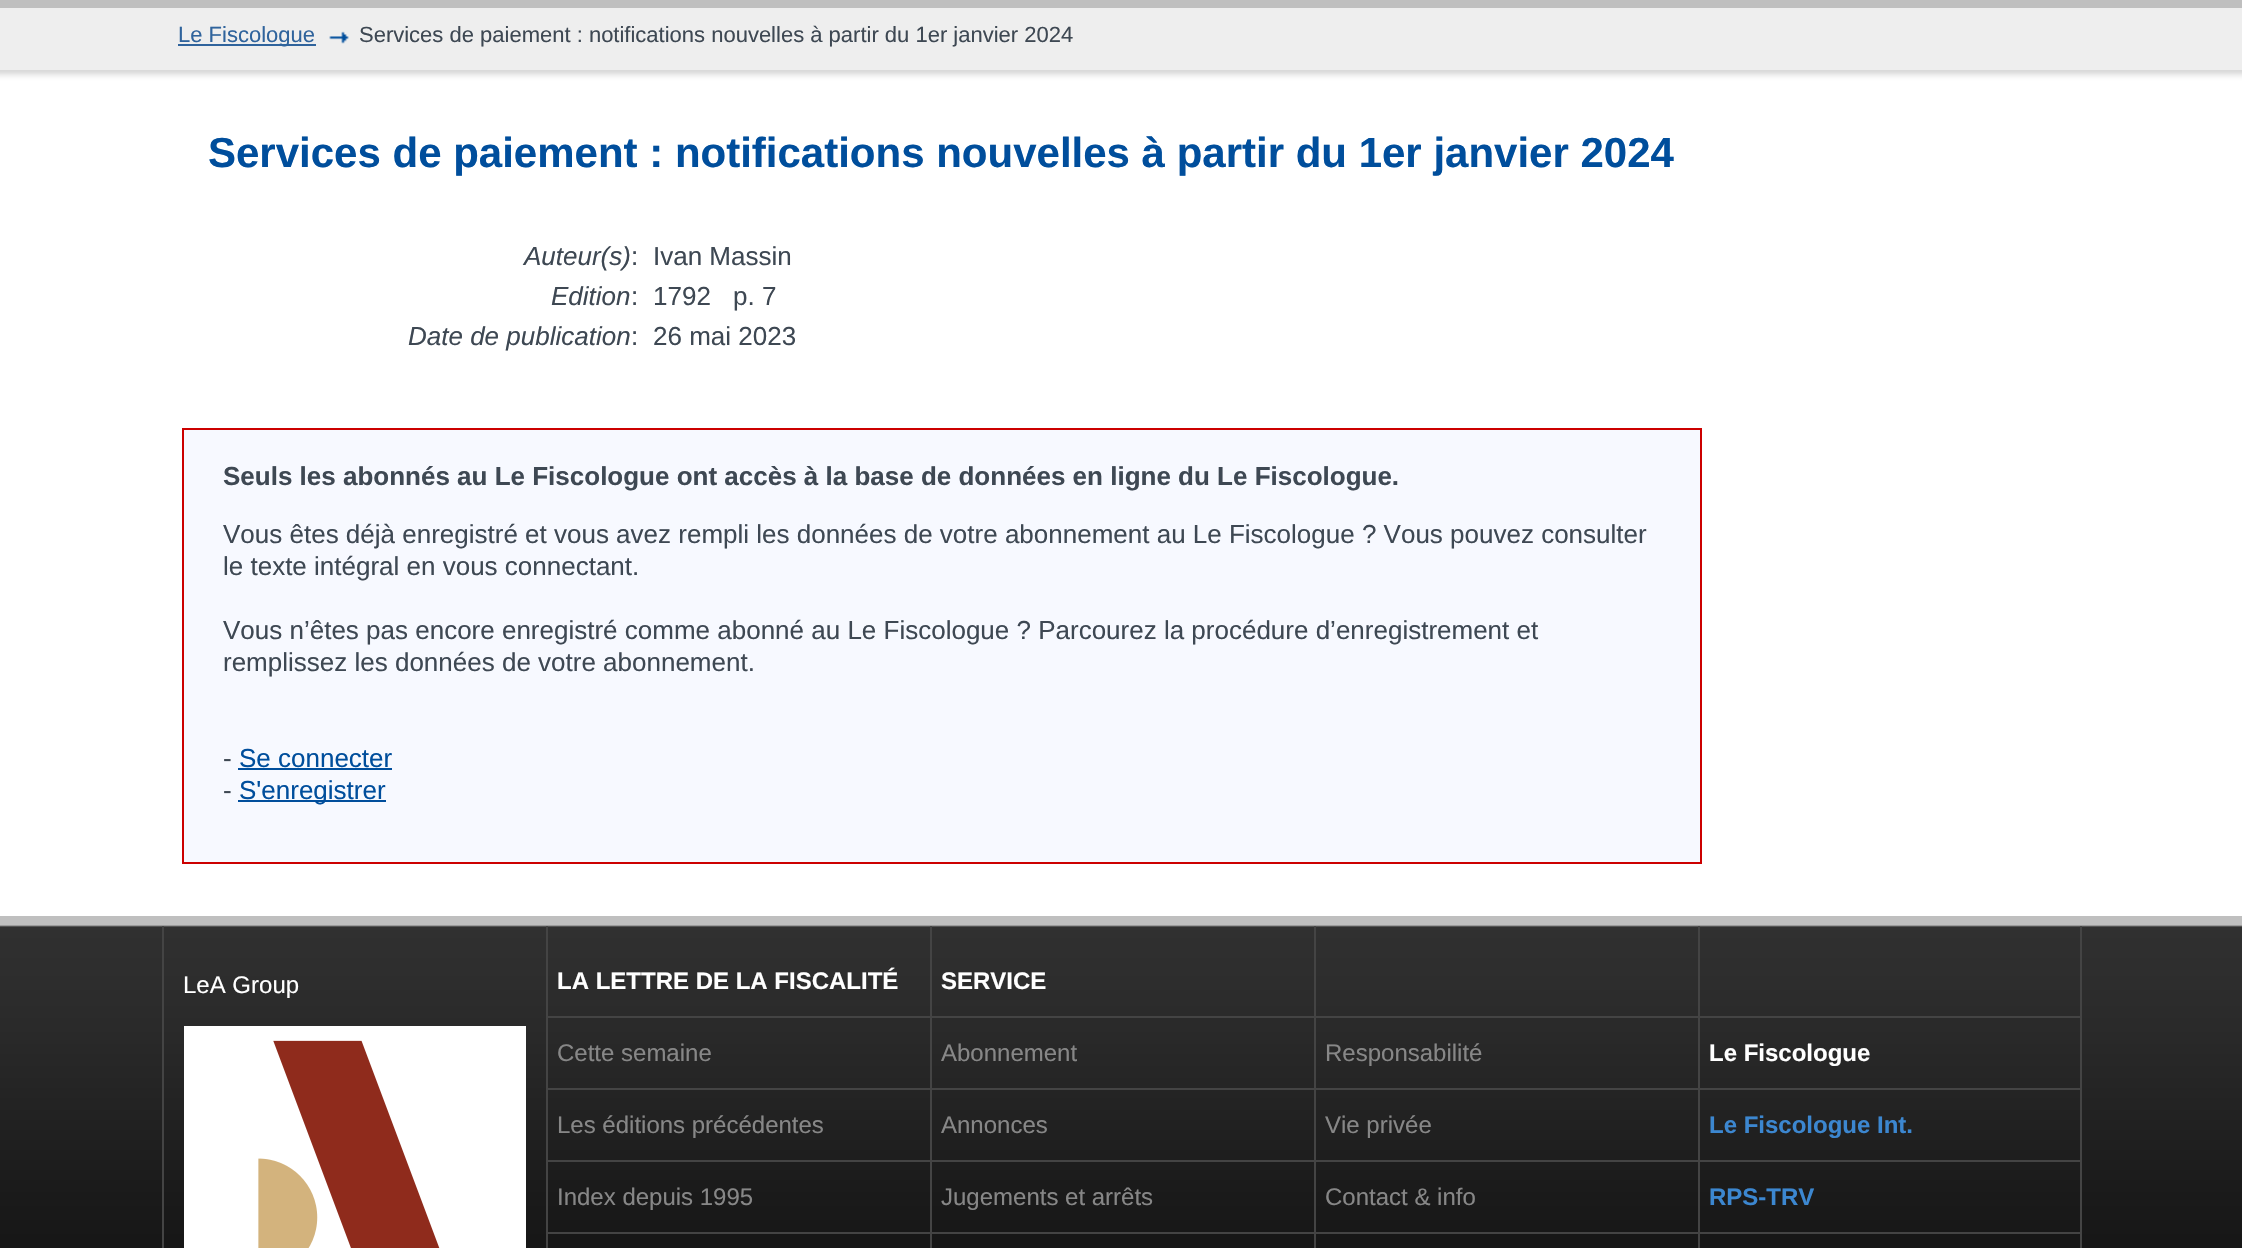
#include "include/core/SkBlurTypes.h"
#include "include/core/SkCanvas.h"
#include "include/core/SkData.h"
#include "include/core/SkFont.h"
#include "include/core/SkFontMgr.h"
#include "include/core/SkImage.h"
#include "include/core/SkMaskFilter.h"
#include "include/core/SkPaint.h"
#include "include/core/SkPathBuilder.h"
#include "include/core/SkTextBlob.h"
#include "include/effects/SkDashPathEffect.h"
#include "include/effects/SkGradientShader.h"
#include "include/utils/SkParsePath.h"

extern sk_sp<SkFontMgr> fontMgr;

static SkFont font(const char* family, int weight, float size, bool italic = false) {
    SkFontStyle style(weight, SkFontStyle::kNormal_Width,
        italic ? SkFontStyle::kItalic_Slant : SkFontStyle::kUpright_Slant);
    SkFont result(fontMgr->matchFamilyStyle(family, style), size);
    result.setSubpixel(true);
    return result;
}

static void drawLabel(SkCanvas* canvas, const char* s, float x, float y, const SkFont& font, SkColor color) {
    SkPaint ink(SkColor4f::FromColor(color));
    ink.setAntiAlias(true);
    canvas->drawString(s, x, y, font, ink);
}

static void fillRect(SkCanvas* canvas, float x, float y, float w, float h, SkColor color) {
    SkPaint ink(SkColor4f::FromColor(color));
    ink.setAntiAlias(true);
    canvas->drawRect(SkRect::MakeXYWH(x, y, w, h), ink);
}

static void drawPhoto(SkCanvas* canvas, const char* path, float x, float y, float w, float h) {
    auto image = SkImages::DeferredFromEncodedData(SkData::MakeFromFileName(path));
    canvas->drawImageRect(image, SkRect::MakeXYWH(x, y, w, h), SkSamplingOptions());
}

void draw(SkCanvas* canvas) {
    SkPaint paint;
    paint.setAntiAlias(true);
    canvas->clear(0xFFBFBFBF);
    fillRect(canvas, 0, 120, 2242, 796, 0xFFFFFFFF);
    fillRect(canvas, 0, 8, 2242, 62, 0xFFEEEEEE);
    drawPhoto(canvas, "assets/img1.png", 0, 70, 2242, 50);
    fillRect(canvas, 178, 44, 138, 2, 0xFF2F639C);
    SkFont font1 = font("Liberation Sans", 400, 22);
    drawLabel(canvas, "Le Fiscologue", 178, 42, font1, 0xFF2F639C);
    drawPhoto(canvas, "assets/img2.png", 329, 31, 20, 13);
    drawLabel(canvas, "Services de paiement : notifications nouvelles à partir du 1er janvier 2024", 359, 42, font1, 0xFF3E4853);
    SkFont font2 = font("Liberation Sans", 700, 42);
    drawLabel(canvas, "Services de paiement : notifications nouvelles à partir du 1er janvier 2024", 208, 167, font2, 0xFF004E9C);
    SkFont font3 = font("Liberation Sans", 400, 26, true);
    drawLabel(canvas, "Auteur(s)", 524, 265, font3, 0xFF3E4853);
    SkFont font4 = font("Liberation Sans", 400, 26);
    drawLabel(canvas, ":", 631, 265, font4, 0xFF3E4853);
    drawLabel(canvas, "Ivan Massin", 653, 265, font4, 0xFF3E4853);
    drawLabel(canvas, "Edition", 551, 305, font3, 0xFF3E4853);
    drawLabel(canvas, ":", 631, 305, font4, 0xFF3E4853);
    drawLabel(canvas, "1792", 653, 305, font4, 0xFF3E4853);
    drawLabel(canvas, "p. 7", 733, 305, font4, 0xFF3E4853);
    drawLabel(canvas, "Date de publication", 408, 345, font3, 0xFF3E4853);
    drawLabel(canvas, ":", 631, 345, font4, 0xFF3E4853);
    drawLabel(canvas, "26 mai 2023", 653, 345, font4, 0xFF3E4853);
    paint.setColor(0xFFF7F9FF);
    canvas->drawRect(SkRect::MakeXYWH(183, 429, 1518, 434), paint);
    paint.setStroke(true);
    paint.setStrokeWidth(2);
    paint.setColor(0xFFCC0000);
    canvas->drawRect(SkRect::MakeXYWH(183, 429, 1518, 434), paint);
    SkFont font5 = font("Liberation Sans", 700, 26);
    drawLabel(canvas, "Seuls les abonnés au Le Fiscologue ont accès à la base de données en ligne du Le Fiscologue.", 223, 485, font5, 0xFF3E4853);
    drawLabel(canvas, "Vous êtes déjà enregistré et vous avez rempli les données de votre abonnement au Le Fiscologue ? Vous pouvez consulter", 223, 543, font4, 0xFF3E4853);
    drawLabel(canvas, "le texte intégral en vous connectant.", 223, 575, font4, 0xFF3E4853);
    drawLabel(canvas, "Vous n’êtes pas encore enregistré comme abonné au Le Fiscologue ? Parcourez la procédure d’enregistrement et", 223, 639, font4, 0xFF3E4853);
    drawLabel(canvas, "remplissez les données de votre abonnement.", 223, 671, font4, 0xFF3E4853);
    drawLabel(canvas, "-", 223, 767, font4, 0xFF3E4853);
    drawLabel(canvas, "Se connecter", 239, 767, font4, 0xFF004E9C);
    fillRect(canvas, 238, 768, 154, 2, 0xFF004E9C);
    drawLabel(canvas, "-", 223, 799, font4, 0xFF3E4853);
    fillRect(canvas, 238, 800, 148, 2, 0xFF004E9C);
    drawLabel(canvas, "S'enregistrer", 239, 799, font4, 0xFF004E9C);
    drawPhoto(canvas, "assets/img3.png", 0, 916, 2242, 332);
    fillRect(canvas, 162, 926, 2, 322, 0xFF444444);
    SkFont font6 = font("Liberation Sans", 400, 24);
    drawLabel(canvas, "LeA Group", 183, 993, font6, 0xFFFFFFFF);
    fillRect(canvas, 184, 1026, 342, 222, 0xFFFFFFFF);
    drawPhoto(canvas, "assets/img4.png", 258, 1040, 182, 208);
    fillRect(canvas, 546, 926, 2, 322, 0xFF444444);
    fillRect(canvas, 548, 1016, 382, 2, 0xFF444444);
    SkFont font7 = font("Liberation Sans", 700, 24);
    drawLabel(canvas, "LA LETTRE DE LA FISCALITÉ", 557, 989, font7, 0xFFFFFFFF);
    fillRect(canvas, 548, 1088, 382, 2, 0xFF444444);
    drawLabel(canvas, "Cette semaine", 557, 1061, font6, 0xFF878787);
    fillRect(canvas, 548, 1160, 382, 2, 0xFF444444);
    drawLabel(canvas, "Les éditions précédentes", 557, 1133, font6, 0xFF878787);
    fillRect(canvas, 548, 1232, 382, 2, 0xFF444444);
    drawLabel(canvas, "Index depuis 1995", 557, 1205, font6, 0xFF878787);
    fillRect(canvas, 930, 926, 2, 322, 0xFF444444);
    fillRect(canvas, 932, 1016, 382, 2, 0xFF444444);
    drawLabel(canvas, "SERVICE", 941, 989, font7, 0xFFFFFFFF);
    fillRect(canvas, 932, 1088, 382, 2, 0xFF444444);
    drawLabel(canvas, "Abonnement", 941, 1061, font6, 0xFF878787);
    fillRect(canvas, 932, 1160, 382, 2, 0xFF444444);
    drawLabel(canvas, "Annonces", 941, 1133, font6, 0xFF878787);
    fillRect(canvas, 932, 1232, 382, 2, 0xFF444444);
    drawLabel(canvas, "Jugements et arrêts", 941, 1205, font6, 0xFF878787);
    fillRect(canvas, 1314, 926, 2, 322, 0xFF444444);
    fillRect(canvas, 1316, 1016, 382, 2, 0xFF444444);
    fillRect(canvas, 1316, 1088, 382, 2, 0xFF444444);
    drawLabel(canvas, "Responsabilité", 1325, 1061, font6, 0xFF878787);
    fillRect(canvas, 1316, 1160, 382, 2, 0xFF444444);
    drawLabel(canvas, "Vie privée", 1325, 1133, font6, 0xFF878787);
    fillRect(canvas, 1316, 1232, 382, 2, 0xFF444444);
    drawLabel(canvas, "Contact & info", 1325, 1205, font6, 0xFF878787);
    fillRect(canvas, 2080, 926, 2, 322, 0xFF444444);
    fillRect(canvas, 1698, 926, 2, 322, 0xFF444444);
    fillRect(canvas, 1700, 1016, 380, 2, 0xFF444444);
    fillRect(canvas, 1700, 1088, 380, 2, 0xFF444444);
    drawLabel(canvas, "Le Fiscologue", 1709, 1061, font7, 0xFFFFFFFF);
    fillRect(canvas, 1700, 1160, 380, 2, 0xFF444444);
    drawLabel(canvas, "Le Fiscologue Int.", 1709, 1133, font7, 0xFF3C87D0);
    fillRect(canvas, 1700, 1232, 380, 2, 0xFF444444);
    drawLabel(canvas, "RPS-TRV", 1709, 1205, font7, 0xFF3C87D0);
}
